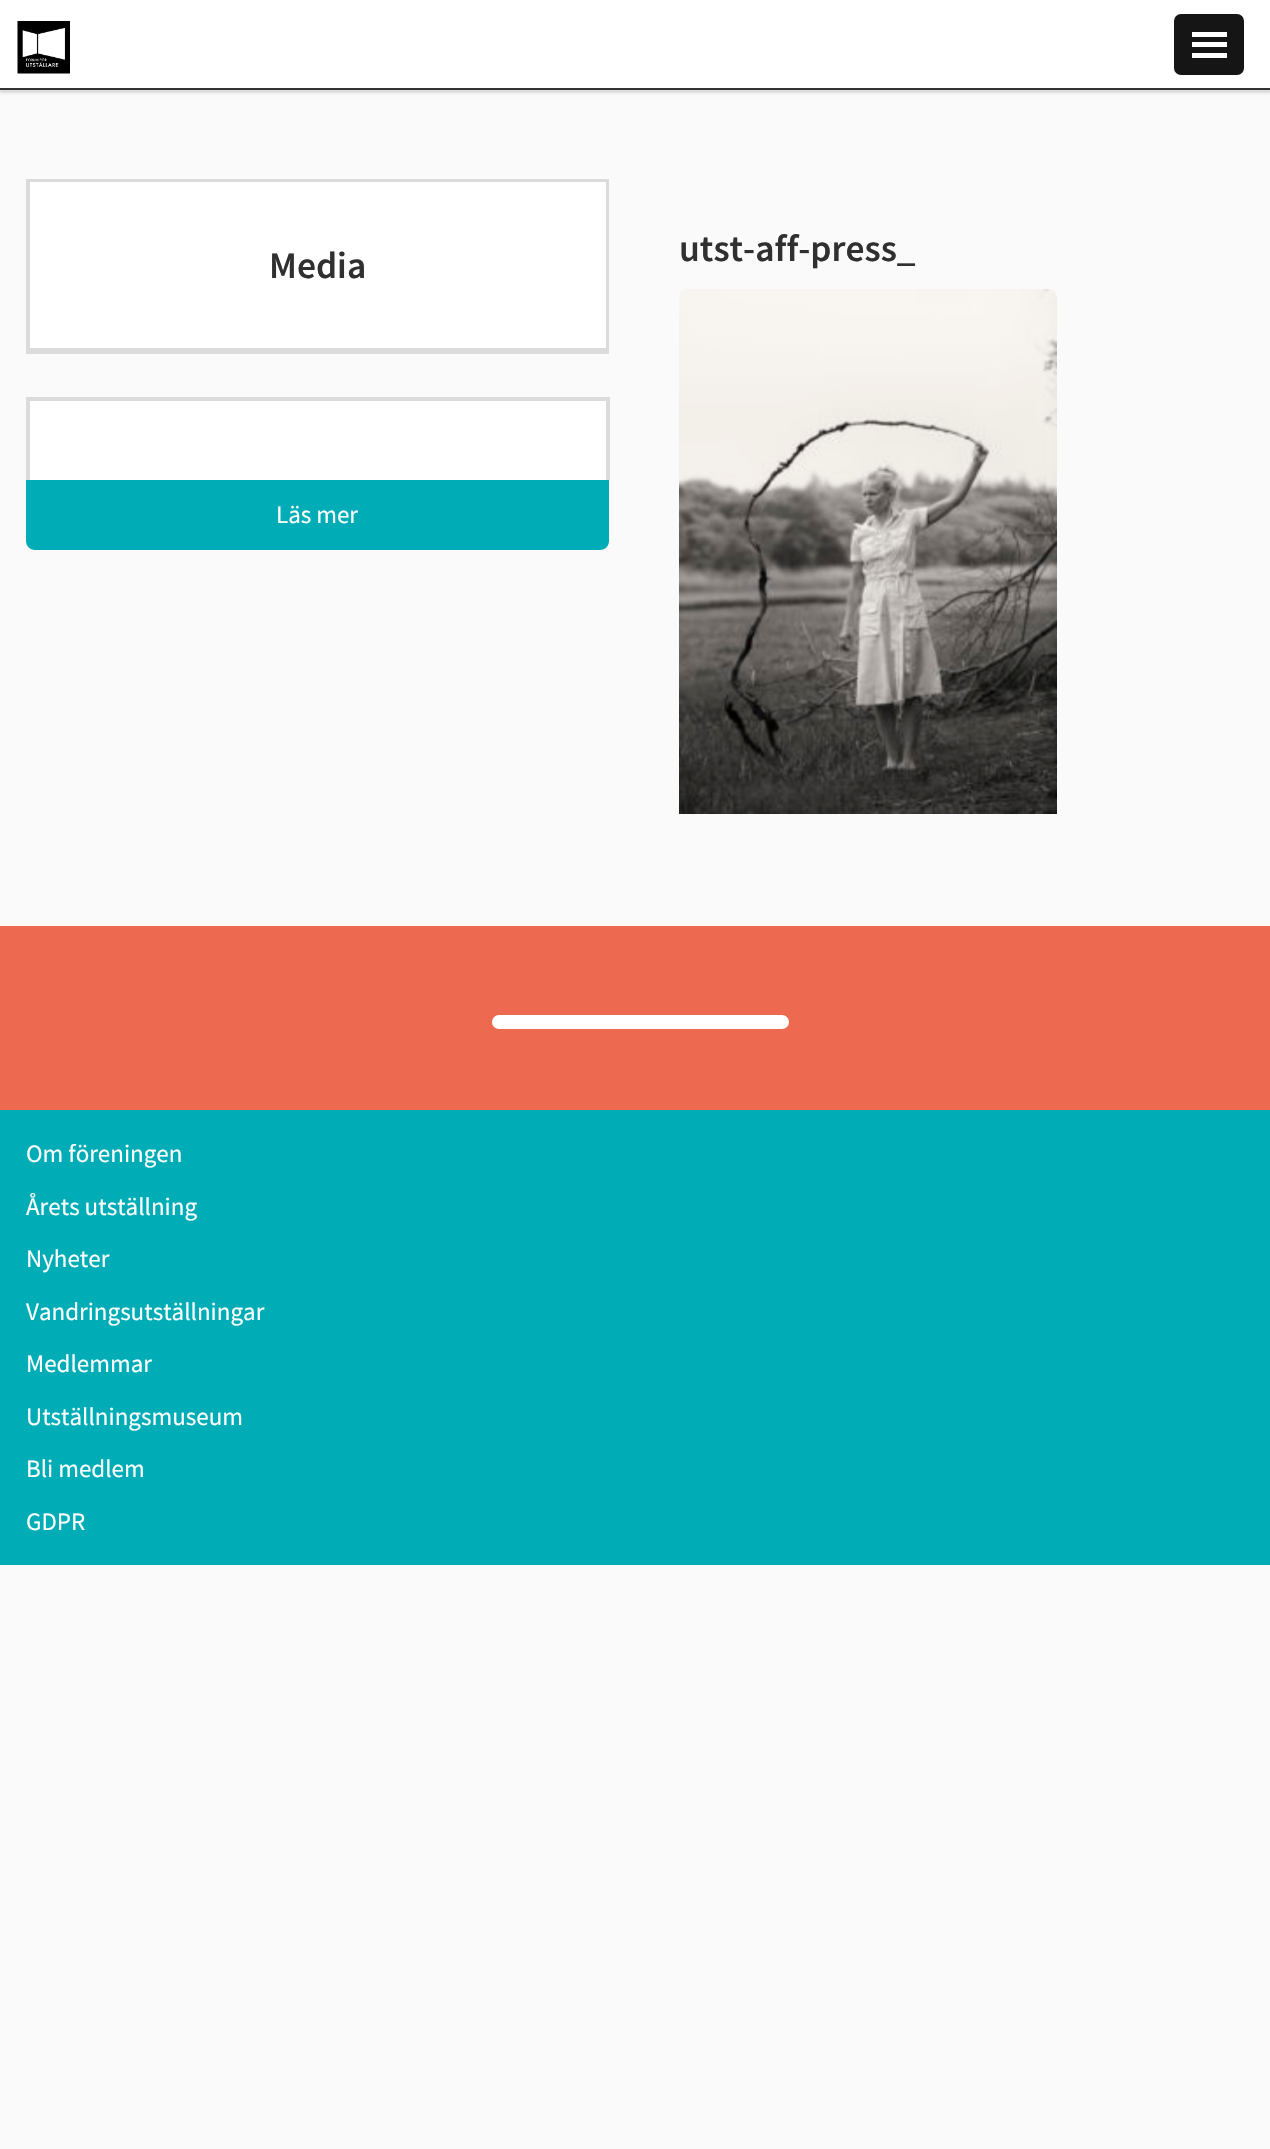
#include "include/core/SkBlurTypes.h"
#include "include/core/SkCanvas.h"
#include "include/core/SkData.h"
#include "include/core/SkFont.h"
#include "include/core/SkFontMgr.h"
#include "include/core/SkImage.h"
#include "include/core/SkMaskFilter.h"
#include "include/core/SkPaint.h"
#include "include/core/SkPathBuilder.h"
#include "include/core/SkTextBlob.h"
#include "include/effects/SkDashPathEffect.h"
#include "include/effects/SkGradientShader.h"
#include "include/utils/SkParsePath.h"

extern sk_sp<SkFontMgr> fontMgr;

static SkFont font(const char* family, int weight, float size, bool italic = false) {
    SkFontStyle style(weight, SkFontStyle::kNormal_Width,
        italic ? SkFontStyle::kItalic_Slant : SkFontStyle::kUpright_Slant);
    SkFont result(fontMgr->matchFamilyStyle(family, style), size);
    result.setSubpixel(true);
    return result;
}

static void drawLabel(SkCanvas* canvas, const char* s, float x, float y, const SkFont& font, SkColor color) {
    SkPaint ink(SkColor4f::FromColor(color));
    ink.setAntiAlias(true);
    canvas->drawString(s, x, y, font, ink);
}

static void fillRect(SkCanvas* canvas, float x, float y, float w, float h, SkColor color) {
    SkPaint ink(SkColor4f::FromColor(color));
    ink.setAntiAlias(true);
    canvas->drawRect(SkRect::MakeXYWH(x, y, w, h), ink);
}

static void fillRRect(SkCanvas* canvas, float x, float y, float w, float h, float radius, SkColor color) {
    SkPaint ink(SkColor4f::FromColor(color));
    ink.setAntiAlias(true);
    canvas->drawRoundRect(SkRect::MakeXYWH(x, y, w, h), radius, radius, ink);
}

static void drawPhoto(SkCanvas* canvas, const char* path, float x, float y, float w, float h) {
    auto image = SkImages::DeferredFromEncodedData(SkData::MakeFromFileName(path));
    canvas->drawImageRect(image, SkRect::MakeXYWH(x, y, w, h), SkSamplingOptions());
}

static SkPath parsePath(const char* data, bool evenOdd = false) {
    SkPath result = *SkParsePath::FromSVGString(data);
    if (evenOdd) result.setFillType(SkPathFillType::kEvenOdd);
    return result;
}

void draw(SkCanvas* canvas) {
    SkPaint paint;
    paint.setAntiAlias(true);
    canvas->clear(0xFFFAFAFA);
    paint.setColor(0xFFDBDBDB);
    paint.setMaskFilter(SkMaskFilter::MakeBlur(kNormal_SkBlurStyle, 1));
    canvas->drawRect(SkRect::MakeXYWH(0, 2, 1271, 91), paint);
    paint.setMaskFilter(nullptr);
    fillRect(canvas, 0, 0, 1270, 88, 0xFFFFFFFF);
    fillRect(canvas, 0, 90, 1, 1, 0xFFDBDBDB);
    drawPhoto(canvas, "assets/img1.png", 17, 21, 53, 53);
    fillRRect(canvas, 1174, 14, 70, 61, 7, 0xFF151515);
    fillRect(canvas, 1192, 32, 35, 5, 0xFFFFFFFF);
    fillRect(canvas, 1192, 42, 35, 5, 0xFFFFFFFF);
    fillRect(canvas, 1192, 53, 35, 5, 0xFFFFFFFF);
    fillRect(canvas, 0, 88, 1270, 2, 0xFF333333);
    paint.setStroke(true);
    paint.setStrokeWidth(4);
    canvas->drawRect(SkRect::MakeXYWH(28, 181, 579, 171), paint);
    fillRect(canvas, 30, 182, 576, 166, 0xFFFFFFFF);
    fillRect(canvas, 30, 348, 576, 2, 0xFFDBDBDB);
    SkFont font1 = font("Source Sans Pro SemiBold", 600, 37.5f);
    drawLabel(canvas, "Media", 269, 278, font1, 0xFF303030);
    fillRect(canvas, 30, 401, 576, 79, 0xFFFFFFFF);
    fillRect(canvas, 26, 397, 583, 4, 0xFFDBDBDB);
    fillRect(canvas, 606, 397, 4, 83, 0xFFDBDBDB);
    fillRect(canvas, 26, 397, 4, 83, 0xFFDBDBDB);
    paint.setStroke(false);
    paint.setColor(0xFF00ADB7);
    canvas->drawPath(parsePath("M26 480H609V541C609 546 605 550 600 550H35C30 550 26 546 26 541Z"), paint);
    SkFont font2 = font("Source Sans Pro", 400, 25);
    drawLabel(canvas, "Läs mer", 276, 523, font2, 0xFFFFFFFF);
    drawLabel(canvas, "utst-aff-press_", 679, 261, font1, 0xFF303030);
    drawPhoto(canvas, "assets/img2.png", 679, 289, 378, 525);
    fillRect(canvas, 0, 926, 1270, 184, 0xFFED694F);
    fillRRect(canvas, 492, 1015, 297, 14, 7, 0xFFFFFFFF);
    fillRect(canvas, 0, 1110, 1270, 455, 0xFF00ADB7);
    drawLabel(canvas, "Om föreningen", 26, 1162, font2, 0xFFFFFFFF);
    drawLabel(canvas, "Årets utställning", 26, 1215, font2, 0xFFFFFFFF);
    drawLabel(canvas, "Nyheter", 26, 1267, font2, 0xFFFFFFFF);
    drawLabel(canvas, "Vandringsutställningar", 26, 1320, font2, 0xFFFFFFFF);
    drawLabel(canvas, "Medlemmar", 26, 1372, font2, 0xFFFFFFFF);
    drawLabel(canvas, "Utställningsmuseum", 26, 1425, font2, 0xFFFFFFFF);
    drawLabel(canvas, "Bli medlem", 26, 1477, font2, 0xFFFFFFFF);
    drawLabel(canvas, "GDPR", 26, 1530, font2, 0xFFFFFFFF);
}
